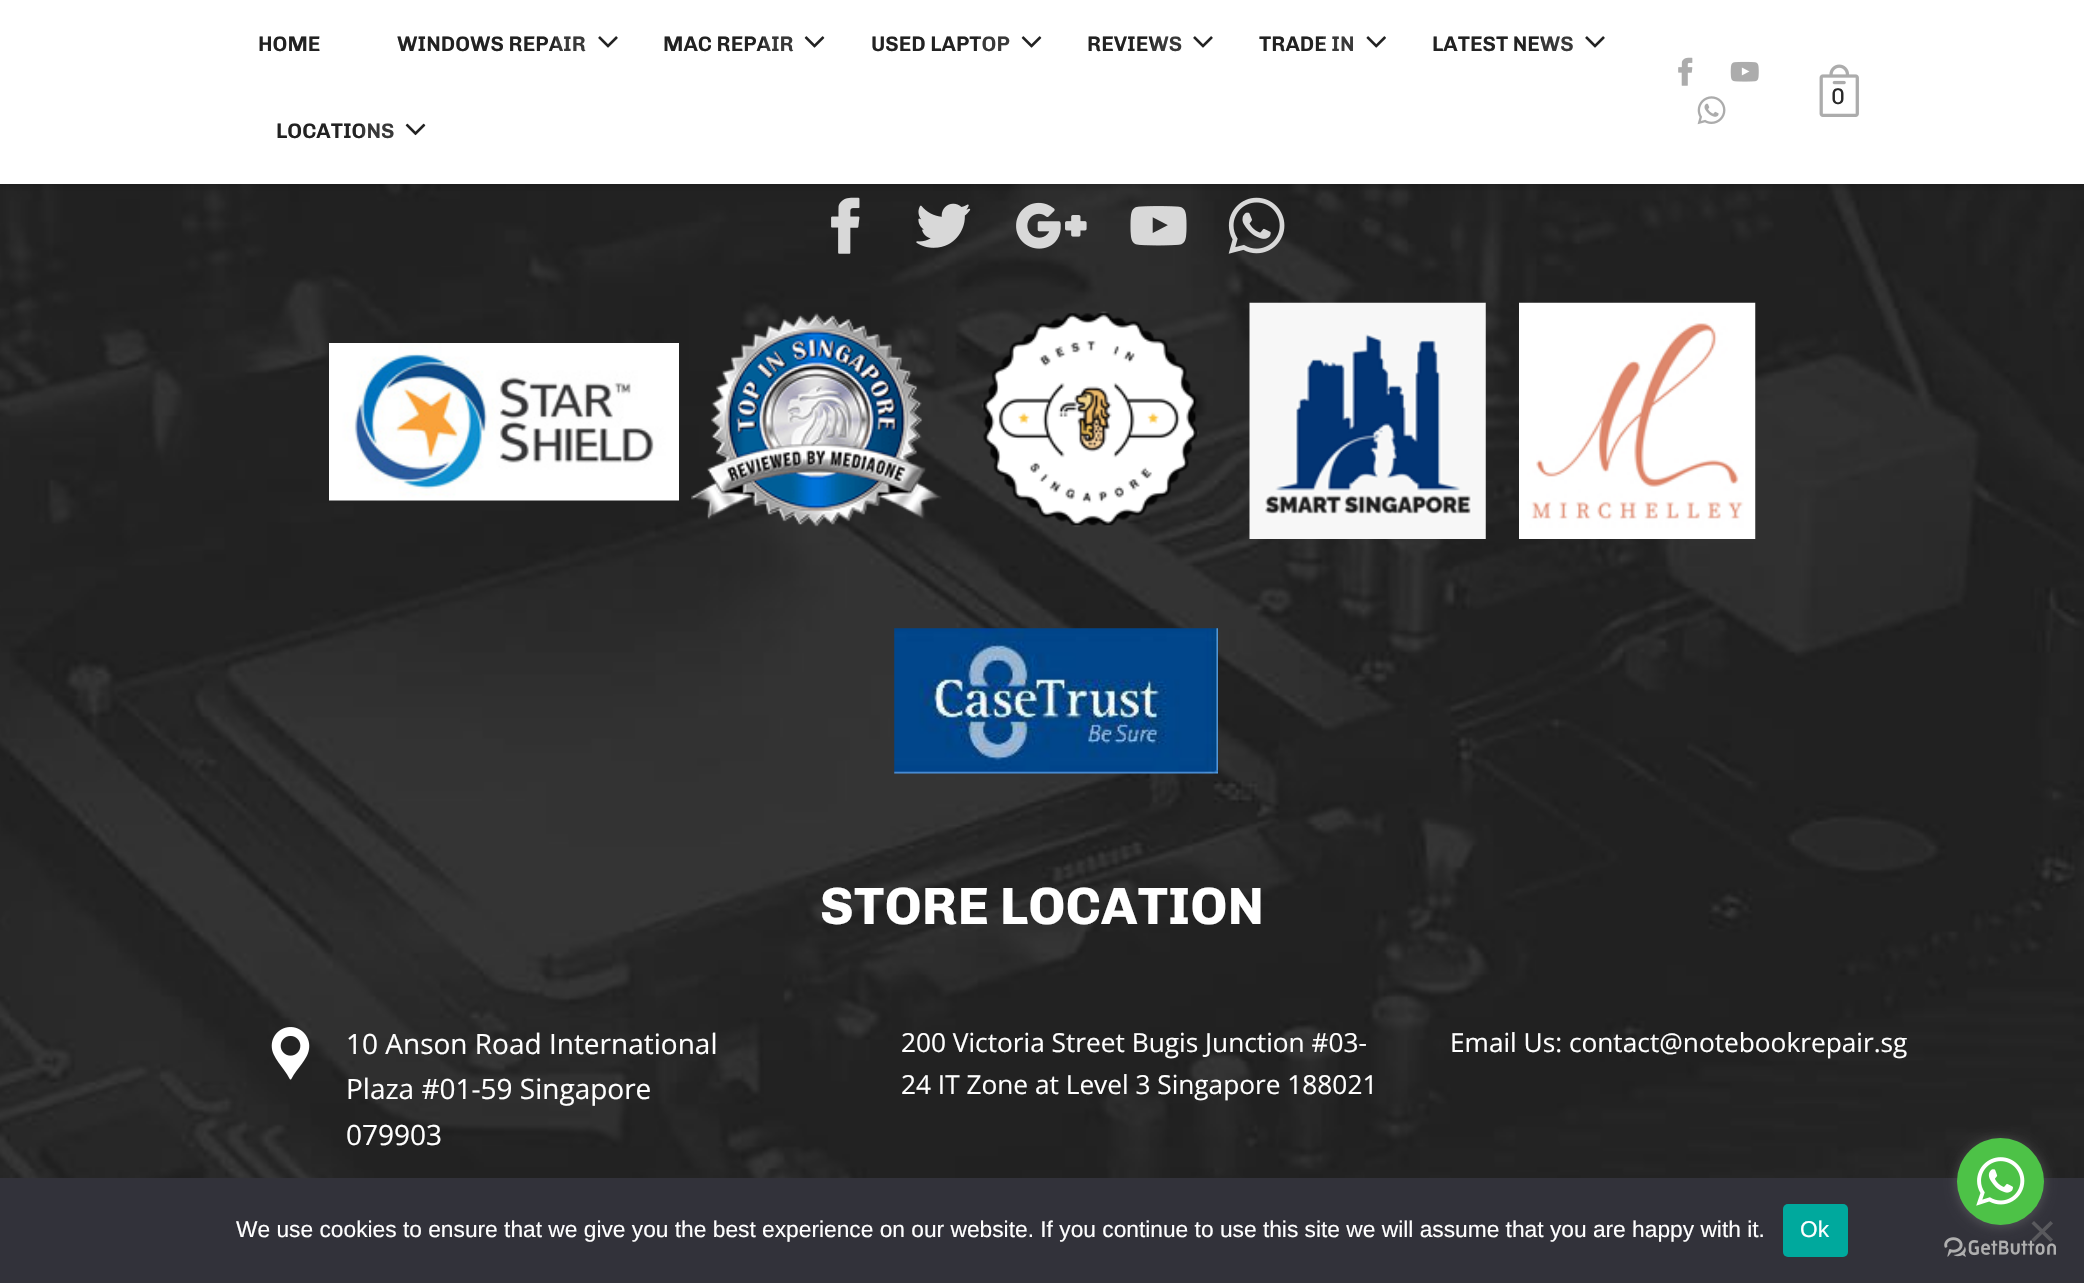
#include "include/core/SkBlurTypes.h"
#include "include/core/SkCanvas.h"
#include "include/core/SkData.h"
#include "include/core/SkFont.h"
#include "include/core/SkFontMgr.h"
#include "include/core/SkImage.h"
#include "include/core/SkMaskFilter.h"
#include "include/core/SkPaint.h"
#include "include/core/SkPathBuilder.h"
#include "include/core/SkTextBlob.h"
#include "include/effects/SkDashPathEffect.h"
#include "include/effects/SkGradientShader.h"
#include "include/utils/SkParsePath.h"

extern sk_sp<SkFontMgr> fontMgr;

static SkFont font(const char* family, int weight, float size, bool italic = false) {
    SkFontStyle style(weight, SkFontStyle::kNormal_Width,
        italic ? SkFontStyle::kItalic_Slant : SkFontStyle::kUpright_Slant);
    SkFont result(fontMgr->matchFamilyStyle(family, style), size);
    result.setSubpixel(true);
    return result;
}

static void drawLabel(SkCanvas* canvas, const char* s, float x, float y, const SkFont& font, SkColor color) {
    SkPaint ink(SkColor4f::FromColor(color));
    ink.setAntiAlias(true);
    canvas->drawString(s, x, y, font, ink);
}

static void fillRect(SkCanvas* canvas, float x, float y, float w, float h, SkColor color) {
    SkPaint ink(SkColor4f::FromColor(color));
    ink.setAntiAlias(true);
    canvas->drawRect(SkRect::MakeXYWH(x, y, w, h), ink);
}

static void fillRRect(SkCanvas* canvas, float x, float y, float w, float h, float radius, SkColor color) {
    SkPaint ink(SkColor4f::FromColor(color));
    ink.setAntiAlias(true);
    canvas->drawRoundRect(SkRect::MakeXYWH(x, y, w, h), radius, radius, ink);
}

static void drawPhoto(SkCanvas* canvas, const char* path, float x, float y, float w, float h) {
    auto image = SkImages::DeferredFromEncodedData(SkData::MakeFromFileName(path));
    canvas->drawImageRect(image, SkRect::MakeXYWH(x, y, w, h), SkSamplingOptions());
}

static SkPath parsePath(const char* data, bool evenOdd = false) {
    SkPath result = *SkParsePath::FromSVGString(data);
    if (evenOdd) result.setFillType(SkPathFillType::kEvenOdd);
    return result;
}

void draw(SkCanvas* canvas) {
    SkPaint paint;
    paint.setAntiAlias(true);
    canvas->clear(0xFFFFFFFF);
    drawPhoto(canvas, "assets/img9.png", 0, 184, 2084, 994);
    paint.setColor(0x26000000);
    paint.setMaskFilter(SkMaskFilter::MakeBlur(kNormal_SkBlurStyle, 2.5f));
    canvas->drawRect(SkRect::MakeXYWH(0, 4, 2084, 183), paint);
    paint.setMaskFilter(nullptr);
    fillRect(canvas, 0, 0, 2084, 184, 0xFFFFFFFF);
    SkFont font1 = font("Chivo", 600, 21);
    drawLabel(canvas, "HOME", 258, 51, font1, 0xFF222222);
    drawLabel(canvas, "WINDOWS REPAIR", 397, 51, font1, 0xFF222222);
    fillRect(canvas, 555, 36, 31, 15, 0x1AFFFFFF);
    drawPhoto(canvas, "assets/img1.png", 598, 36, 20, 12);
    drawLabel(canvas, "MAC REPAIR", 663, 51, font1, 0xFF222222);
    fillRect(canvas, 763, 36, 31, 15, 0x1AFFFFFF);
    drawPhoto(canvas, "assets/img2.png", 804, 36, 21, 12);
    drawLabel(canvas, "USED LAPTOP", 871, 51, font1, 0xFF222222);
    fillRect(canvas, 978, 36, 32, 16, 0x1AFFFFFF);
    drawPhoto(canvas, "assets/img2.png", 1021, 36, 21, 12);
    drawLabel(canvas, "REVIEWS", 1087, 51, font1, 0xFF222222);
    fillRect(canvas, 1152, 36, 30, 16, 0x1AFFFFFF);
    drawPhoto(canvas, "assets/img1.png", 1193, 36, 20, 12);
    drawLabel(canvas, "TRADE IN", 1259, 51, font1, 0xFF222222);
    fillRect(canvas, 1323, 36, 31, 15, 0x1AFFFFFF);
    drawPhoto(canvas, "assets/img3.png", 1366, 36, 20, 12);
    drawLabel(canvas, "LATEST NEWS", 1432, 51, font1, 0xFF222222);
    fillRect(canvas, 1542, 36, 31, 16, 0x1AFFFFFF);
    drawPhoto(canvas, "assets/img1.png", 1585, 36, 20, 12);
    drawLabel(canvas, "LOCATIONS", 276, 138, font1, 0xFF222222);
    fillRect(canvas, 362, 123, 32, 16, 0x1AFFFFFF);
    drawPhoto(canvas, "assets/img4.png", 405, 123, 21, 13);
    drawPhoto(canvas, "assets/img5.png", 1678, 57, 15, 29);
    drawPhoto(canvas, "assets/img6.png", 1730, 61, 29, 21);
    drawPhoto(canvas, "assets/img7.png", 1697, 96, 29, 29);
    drawPhoto(canvas, "assets/img8.png", 1819, 64, 40, 53);
    SkFont font2 = font("Chivo", 400, 22.75f);
    drawLabel(canvas, "0", 1831, 104, font2, 0xFF292929);
    drawPhoto(canvas, "assets/img10.png", 831, 197, 29, 57);
    drawPhoto(canvas, "assets/img11.png", 916, 203, 55, 45);
    drawPhoto(canvas, "assets/img12.png", 1016, 202, 71, 47);
    drawPhoto(canvas, "assets/img13.png", 1130, 206, 57, 40);
    drawPhoto(canvas, "assets/img14.png", 1228, 197, 57, 57);
    drawPhoto(canvas, "assets/img15.png", 329, 343, 350, 158);
    drawPhoto(canvas, "assets/img16.png", 691, 312, 251, 215);
    drawPhoto(canvas, "assets/img17.png", 981, 311, 218, 216);
    drawPhoto(canvas, "assets/img18.png", 1249, 302, 237, 237);
    drawPhoto(canvas, "assets/img19.png", 1519, 302, 237, 237);
    drawPhoto(canvas, "assets/img20.png", 894, 628, 324, 146);
    SkFont font3 = font("Chivo", 700, 52.5f);
    drawLabel(canvas, "STORE LOCATION", 820, 924, font3, 0xFFFFFFFF);
    drawPhoto(canvas, "assets/img21.png", 271, 1027, 39, 53);
    SkFont font4 = font("Open Sans", 400, 28);
    drawLabel(canvas, "10 Anson Road International", 346, 1054, font4, 0xFFFFFFFF);
    drawLabel(canvas, "Plaza #01-59 Singapore", 346, 1099, font4, 0xFFFFFFFF);
    drawLabel(canvas, "079903", 346, 1145, font4, 0xFFFFFFFF);
    SkFont font5 = font("Open Sans", 400, 26.25f);
    drawLabel(canvas, "200 Victoria Street Bugis Junction #03-", 901, 1052, font5, 0xFFFFFFFF);
    drawLabel(canvas, "24 IT Zone at Level 3 Singapore 188021", 901, 1094, font5, 0xFFFFFFFF);
    drawLabel(canvas, "Email Us: contact@notebookrepair.sg", 1450, 1052, font5, 0xFFFFFFFF);
    fillRect(canvas, 0, 1178, 2084, 105, 0xFF32323A);
    SkFont font6 = font("Liberation Sans", 400, 22.75f);
    drawLabel(canvas, "We use cookies to ensure that we give you the best experience on our website. If you continue to use this site we will assume that you are happy with it.", 236, 1237, font6, 0xFFFFFFFF);
    fillRRect(canvas, 1783, 1204, 65, 53, 5, 0xFF00A99D);
    drawLabel(canvas, "Ok", 1800, 1237, font6, 0xFFFFFFFF);
    paint.setColor(0xFF59595D);
    canvas->drawPath(parsePath("M2050.5 1221L2053 1223.5L2034 1242L2031.5 1239.5Z"), paint);
    canvas->drawPath(parsePath("M2031.5 1223.5L2034 1221L2053 1239.5L2050.5 1242Z"), paint);
    drawPhoto(canvas, "assets/img23.png", 1944, 1237, 112, 20);
    paint.setColor(0x66888888);
    paint.setMaskFilter(SkMaskFilter::MakeBlur(kNormal_SkBlurStyle, 6));
    canvas->drawRoundRect(SkRect::MakeXYWH(1957, 1139, 87, 88), 43.5f, 43.5f, paint);
    paint.setMaskFilter(nullptr);
    paint.setColor(0xFF4DC247);
    canvas->drawCircle(2000.5f, 1181.5f, 43.5f, paint);
    drawPhoto(canvas, "assets/img22.png", 1976, 1157, 49, 49);
}
